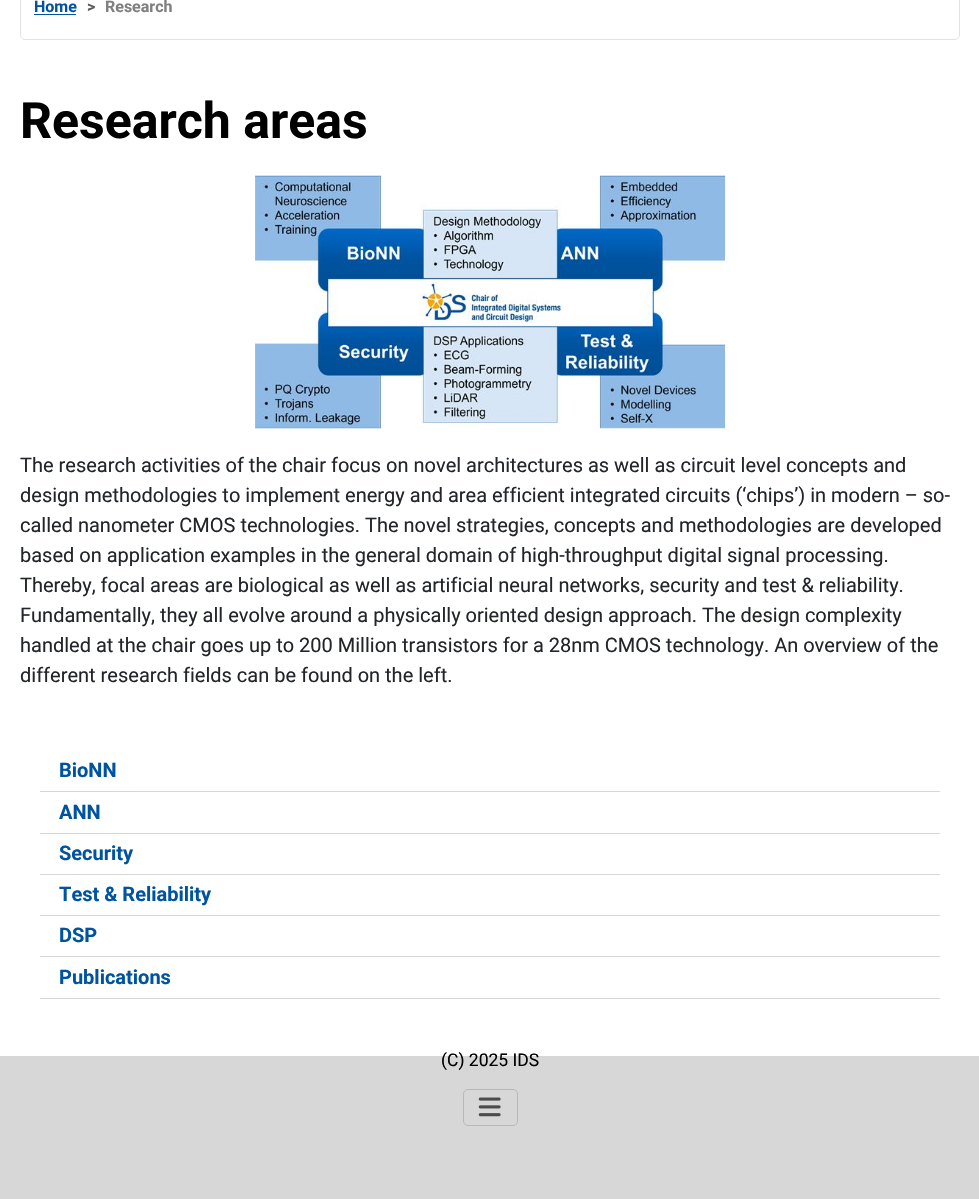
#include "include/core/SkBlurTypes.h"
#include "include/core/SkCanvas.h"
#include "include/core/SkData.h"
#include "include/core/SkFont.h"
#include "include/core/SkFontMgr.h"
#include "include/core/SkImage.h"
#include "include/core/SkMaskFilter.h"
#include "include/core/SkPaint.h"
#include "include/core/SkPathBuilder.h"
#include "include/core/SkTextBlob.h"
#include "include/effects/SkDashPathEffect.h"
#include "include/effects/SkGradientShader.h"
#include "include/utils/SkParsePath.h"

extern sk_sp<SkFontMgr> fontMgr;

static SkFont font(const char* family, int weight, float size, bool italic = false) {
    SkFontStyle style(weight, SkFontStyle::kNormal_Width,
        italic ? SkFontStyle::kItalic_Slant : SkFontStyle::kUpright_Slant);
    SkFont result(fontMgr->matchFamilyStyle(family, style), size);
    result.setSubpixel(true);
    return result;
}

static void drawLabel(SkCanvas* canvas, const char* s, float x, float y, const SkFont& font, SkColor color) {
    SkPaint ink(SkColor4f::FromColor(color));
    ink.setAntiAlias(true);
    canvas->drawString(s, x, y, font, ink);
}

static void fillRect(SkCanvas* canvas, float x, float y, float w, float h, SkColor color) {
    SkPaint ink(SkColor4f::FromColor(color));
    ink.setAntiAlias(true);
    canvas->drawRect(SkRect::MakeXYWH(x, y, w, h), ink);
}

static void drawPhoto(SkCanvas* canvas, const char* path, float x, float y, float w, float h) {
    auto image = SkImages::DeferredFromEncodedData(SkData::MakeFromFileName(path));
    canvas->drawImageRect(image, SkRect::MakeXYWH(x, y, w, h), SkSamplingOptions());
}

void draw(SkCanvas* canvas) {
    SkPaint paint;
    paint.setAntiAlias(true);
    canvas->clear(0xFFFFFFFF);
    paint.setStroke(true);
    paint.setStrokeWidth(1);
    paint.setColor(0xFFDFE3E7);
    canvas->drawRoundRect(SkRect::MakeXYWH(20.5f, -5.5f, 939, 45), 4.5f, 4.5f, paint);
    SkFont font1 = font("Roboto", 700, 16);
    drawLabel(canvas, "Home", 34, 12, font1, 0xFF00549F);
    fillRect(canvas, 34, 14, 42, 1, 0xFF00549F);
    drawLabel(canvas, ">", 87, 12, font1, 0xFF595C5F);
    drawLabel(canvas, "Research", 105, 12, font1, 0xFF808080);
    SkFont font2 = font("Roboto", 700, 50);
    drawLabel(canvas, "Research areas", 20, 138, font2, 0xFF000000);
    drawPhoto(canvas, "assets/img1.png", 255, 175, 470, 254);
    SkFont font3 = font("Roboto", 400, 20);
    drawLabel(canvas, "The research activities of the chair focus on novel architectures as well as circuit level concepts and", 20, 472, font3, 0xFF22262A);
    drawLabel(canvas, "design methodologies to implement energy and area efficient integrated circuits (‘chips’) in modern – so-", 20, 502, font3, 0xFF22262A);
    drawLabel(canvas, "called nanometer CMOS technologies. The novel strategies, concepts and methodologies are developed", 20, 532, font3, 0xFF22262A);
    drawLabel(canvas, "based on application examples in the general domain of high-throughput digital signal processing.", 20, 562, font3, 0xFF22262A);
    drawLabel(canvas, "Thereby, focal areas are biological as well as artificial neural networks, security and test & reliability.", 20, 592, font3, 0xFF22262A);
    drawLabel(canvas, "Fundamentally, they all evolve around a physically oriented design approach. The design complexity", 20, 622, font3, 0xFF22262A);
    drawLabel(canvas, "handled at the chair goes up to 200 Million transistors for a 28nm CMOS technology. An overview of the", 20, 652, font3, 0xFF22262A);
    drawLabel(canvas, "different research fields can be found on the left.", 20, 682, font3, 0xFF22262A);
    fillRect(canvas, 40, 791, 900, 1, 0xFFD7D7D7);
    SkFont font4 = font("Roboto", 700, 20);
    drawLabel(canvas, "BioNN", 59, 777, font4, 0xFF00549F);
    fillRect(canvas, 40, 833, 900, 1, 0xFFD7D7D7);
    drawLabel(canvas, "ANN", 59, 819, font4, 0xFF00549F);
    fillRect(canvas, 40, 874, 900, 1, 0xFFD7D7D7);
    drawLabel(canvas, "Security", 59, 860, font4, 0xFF00549F);
    fillRect(canvas, 40, 915, 900, 1, 0xFFD7D7D7);
    drawLabel(canvas, "Test & Reliability", 59, 901, font4, 0xFF00549F);
    fillRect(canvas, 40, 956, 900, 1, 0xFFD7D7D7);
    drawLabel(canvas, "DSP", 59, 942, font4, 0xFF00549F);
    fillRect(canvas, 40, 998, 900, 1, 0xFFD7D7D7);
    drawLabel(canvas, "Publications", 59, 984, font4, 0xFF00549F);
    fillRect(canvas, 0, 1056, 979, 143, 0xFFD7D7D7);
    SkFont font5 = font("Roboto", 400, 17.5f);
    drawLabel(canvas, "(C) 2025 IDS", 441, 1066, font5, 0xFF000000);
    paint.setColor(0xFFB7B7B7);
    canvas->drawRoundRect(SkRect::MakeXYWH(463.5f, 1089.5f, 54, 36), 4.5f, 4.5f, paint);
    drawPhoto(canvas, "assets/img2.png", 478, 1097, 23, 20);
}
